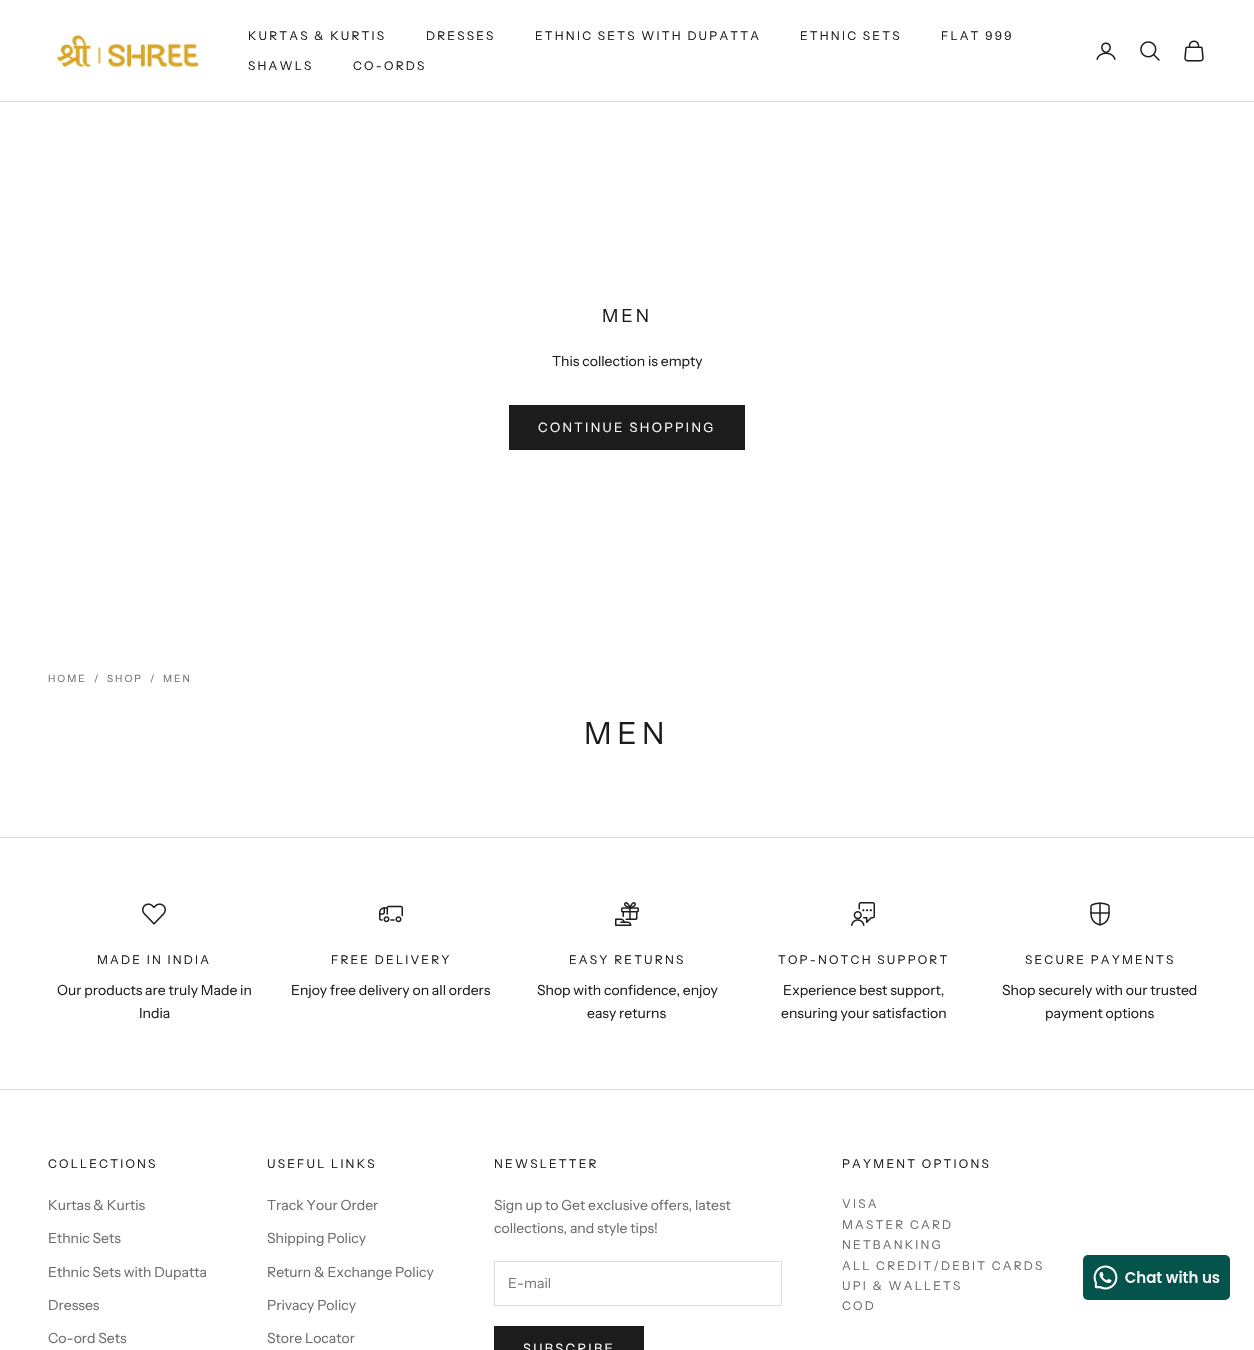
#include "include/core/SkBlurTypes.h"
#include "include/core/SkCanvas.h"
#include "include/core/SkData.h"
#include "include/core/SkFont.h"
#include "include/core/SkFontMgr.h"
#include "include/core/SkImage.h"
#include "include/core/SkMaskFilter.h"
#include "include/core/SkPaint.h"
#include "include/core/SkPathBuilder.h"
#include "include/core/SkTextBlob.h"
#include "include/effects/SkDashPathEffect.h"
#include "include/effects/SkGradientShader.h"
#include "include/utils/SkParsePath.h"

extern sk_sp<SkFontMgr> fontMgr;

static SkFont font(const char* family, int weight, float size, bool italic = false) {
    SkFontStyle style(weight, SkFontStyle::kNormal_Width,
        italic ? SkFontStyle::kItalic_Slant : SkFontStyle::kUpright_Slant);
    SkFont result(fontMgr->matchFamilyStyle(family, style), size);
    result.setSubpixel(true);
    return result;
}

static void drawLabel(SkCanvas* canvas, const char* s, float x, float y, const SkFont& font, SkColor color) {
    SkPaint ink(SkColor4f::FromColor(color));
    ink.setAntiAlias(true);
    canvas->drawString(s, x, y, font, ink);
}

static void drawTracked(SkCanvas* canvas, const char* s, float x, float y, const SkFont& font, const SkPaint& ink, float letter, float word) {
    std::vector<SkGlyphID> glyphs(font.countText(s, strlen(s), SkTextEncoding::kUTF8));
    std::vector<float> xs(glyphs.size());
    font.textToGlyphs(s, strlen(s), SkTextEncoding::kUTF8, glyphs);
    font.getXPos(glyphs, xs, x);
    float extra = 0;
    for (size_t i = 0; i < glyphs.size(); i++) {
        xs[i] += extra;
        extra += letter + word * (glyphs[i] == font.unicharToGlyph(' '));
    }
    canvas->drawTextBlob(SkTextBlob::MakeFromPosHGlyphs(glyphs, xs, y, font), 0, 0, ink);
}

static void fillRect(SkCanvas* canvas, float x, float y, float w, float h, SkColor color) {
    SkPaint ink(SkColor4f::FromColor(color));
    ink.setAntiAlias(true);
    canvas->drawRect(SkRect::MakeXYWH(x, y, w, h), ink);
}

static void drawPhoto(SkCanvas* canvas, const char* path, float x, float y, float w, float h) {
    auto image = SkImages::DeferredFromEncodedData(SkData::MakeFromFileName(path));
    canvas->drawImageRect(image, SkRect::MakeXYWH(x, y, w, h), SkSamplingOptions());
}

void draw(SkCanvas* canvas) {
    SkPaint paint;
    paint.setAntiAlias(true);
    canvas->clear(0xFFFFFFFF);
    fillRect(canvas, 0, 101, 1254, 1, 0xFFDDDDDD);
    drawPhoto(canvas, "assets/img1.png", 56, 34, 143, 33);
    SkFont font1 = font("Instrument Sans", 400, 12);
    paint.setColor(0xFF1C1C1C);
    drawTracked(canvas, "KURTAS & KURTIS", 248, 40, font1, paint, 2.2f, 0);
    drawTracked(canvas, "DRESSES", 426, 40, font1, paint, 2.2f, 0);
    drawTracked(canvas, "ETHNIC SETS WITH DUPATTA", 535, 40, font1, paint, 2.2f, 0);
    drawTracked(canvas, "ETHNIC SETS", 800, 40, font1, paint, 2.2f, 0);
    drawTracked(canvas, "FLAT 999", 941, 40, font1, paint, 2.2f, 0);
    drawTracked(canvas, "SHAWLS", 248, 70, font1, paint, 2.2f, 0);
    drawTracked(canvas, "CO-ORDS", 353, 70, font1, paint, 2.2f, 0);
    drawPhoto(canvas, "assets/img2.png", 1096, 42, 20, 18);
    drawPhoto(canvas, "assets/img3.png", 1140, 41, 20, 20);
    drawPhoto(canvas, "assets/img4.png", 1184, 40, 20, 22);
    SkFont font2 = font("Instrument Sans", 400, 18);
    drawTracked(canvas, "MEN", 602, 322, font2, paint, 3, 0);
    SkFont font3 = font("Instrument Sans", 400, 14);
    drawLabel(canvas, "This collection is empty", 552, 366, font3, 0xFF1C1C1C);
    canvas->drawRect(SkRect::MakeXYWH(509.5f, 405.5f, 235, 44), paint);
    paint.setStroke(true);
    paint.setStrokeWidth(1);
    canvas->drawRect(SkRect::MakeXYWH(509.5f, 405.5f, 235, 44), paint);
    SkFont font4 = font("Instrument Sans", 400, 13);
    paint.setStroke(false);
    paint.setColor(0xFFFFFFFF);
    drawTracked(canvas, "CONTINUE SHOPPING", 538, 432, font4, paint, 2.3f, 0);
    SkFont font5 = font("Instrument Sans", 400, 10);
    paint.setColor(0xFF6B6B6B);
    drawTracked(canvas, "HOME", 48, 682, font5, paint, 2, 0);
    drawLabel(canvas, "/", 94, 682, font5, 0xFF6B6B6B);
    drawTracked(canvas, "SHOP", 107, 682, font5, paint, 2, 0);
    drawLabel(canvas, "/", 150, 682, font5, 0xFF6B6B6B);
    drawTracked(canvas, "MEN", 163, 682, font5, paint, 2, 0);
    SkFont font6 = font("Instrument Sans", 400, 30.5f);
    paint.setColor(0xFF1C1C1C);
    drawTracked(canvas, "MEN", 584, 744, font6, paint, 5.5f, 0);
    fillRect(canvas, 0, 837, 1254, 1, 0xFFDDDDDD);
    drawPhoto(canvas, "assets/img5.png", 142, 903, 24, 22);
    drawTracked(canvas, "MADE IN INDIA", 97, 964, font1, paint, 2.2f, 0);
    drawLabel(canvas, "Our products are truly Made in", 57, 995, font3, 0xFF1C1C1C);
    drawLabel(canvas, "India", 139, 1018, font3, 0xFF1C1C1C);
    drawPhoto(canvas, "assets/img6.png", 379, 905, 24, 18);
    drawTracked(canvas, "FREE DELIVERY", 331, 964, font1, paint, 2.2f, 0);
    drawLabel(canvas, "Enjoy free delivery on all orders", 291, 995, font3, 0xFF1C1C1C);
    drawPhoto(canvas, "assets/img7.png", 615, 902, 24, 24);
    drawTracked(canvas, "EASY RETURNS", 569, 964, font1, paint, 2.2f, 0);
    drawLabel(canvas, "Shop with confidence, enjoy", 537, 995, font3, 0xFF1C1C1C);
    drawLabel(canvas, "easy returns", 587, 1018, font3, 0xFF1C1C1C);
    drawPhoto(canvas, "assets/img8.png", 851, 902, 24, 24);
    drawTracked(canvas, "TOP-NOTCH SUPPORT", 778, 964, font1, paint, 2.2f, 0);
    drawLabel(canvas, "Experience best support,", 783, 995, font3, 0xFF1C1C1C);
    drawLabel(canvas, "ensuring your satisfaction", 781, 1018, font3, 0xFF1C1C1C);
    drawPhoto(canvas, "assets/img9.png", 1090, 902, 20, 24);
    drawTracked(canvas, "SECURE PAYMENTS", 1025, 964, font1, paint, 2.2f, 0);
    drawLabel(canvas, "Shop securely with our trusted", 1002, 995, font3, 0xFF1C1C1C);
    drawLabel(canvas, "payment options", 1045, 1018, font3, 0xFF1C1C1C);
    fillRect(canvas, 0, 1089, 1254, 1, 0xFFDDDDDD);
    drawTracked(canvas, "COLLECTIONS", 48, 1168, font1, paint, 2.2f, 0);
    drawLabel(canvas, "Kurtas & Kurtis", 48, 1210, font3, 0xFF6B6B6B);
    drawLabel(canvas, "Ethnic Sets", 48, 1243, font3, 0xFF6B6B6B);
    drawLabel(canvas, "Ethnic Sets with Dupatta", 48, 1277, font3, 0xFF6B6B6B);
    drawLabel(canvas, "Dresses", 48, 1310, font3, 0xFF6B6B6B);
    drawLabel(canvas, "Co-ord Sets", 48, 1343, font3, 0xFF6B6B6B);
    drawTracked(canvas, "USEFUL LINKS", 267, 1168, font1, paint, 2.2f, 0);
    drawLabel(canvas, "Track Your Order", 267, 1210, font3, 0xFF6B6B6B);
    drawLabel(canvas, "Shipping Policy", 267, 1243, font3, 0xFF6B6B6B);
    drawLabel(canvas, "Return & Exchange Policy", 267, 1277, font3, 0xFF6B6B6B);
    drawLabel(canvas, "Privacy Policy", 267, 1310, font3, 0xFF6B6B6B);
    drawLabel(canvas, "Store Locator", 267, 1343, font3, 0xFF6B6B6B);
    drawTracked(canvas, "NEWSLETTER", 494, 1168, font1, paint, 2.2f, 0);
    drawLabel(canvas, "Sign up to Get exclusive offers, latest", 494, 1210, font3, 0xFF6B6B6B);
    drawLabel(canvas, "collections, and style tips!", 494, 1233, font3, 0xFF6B6B6B);
    paint.setStroke(true);
    paint.setColor(0xFFDDDDDD);
    canvas->drawRect(SkRect::MakeXYWH(494.5f, 1261.5f, 287, 44), paint);
    drawLabel(canvas, "E-mail", 508, 1288, font3, 0xFF777777);
    paint.setStroke(false);
    paint.setColor(0xFF1C1C1C);
    canvas->drawRect(SkRect::MakeXYWH(494.5f, 1326.5f, 149, 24), paint);
    paint.setStroke(true);
    canvas->drawRect(SkRect::MakeXYWH(494.5f, 1326.5f, 149, 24), paint);
    paint.setStroke(false);
    paint.setColor(0xFFFFFFFF);
    drawTracked(canvas, "SUBSCRIBE", 523, 1353, font4, paint, 2.3f, 0);
    paint.setColor(0xFF1C1C1C);
    drawTracked(canvas, "PAYMENT OPTIONS", 842, 1168, font1, paint, 2.2f, 0);
    paint.setColor(0xFF6B6B6B);
    drawTracked(canvas, "VISA", 842, 1208, font1, paint, 2.2f, 0);
    drawTracked(canvas, "MASTER CARD", 842, 1229, font1, paint, 2.2f, 0);
    drawTracked(canvas, "NETBANKING", 842, 1249, font1, paint, 2.2f, 0);
    drawTracked(canvas, "ALL CREDIT/DEBIT CARDS", 842, 1270, font1, paint, 2.2f, 0);
    drawTracked(canvas, "UPI & WALLETS", 842, 1290, font1, paint, 2.2f, 0);
    drawTracked(canvas, "COD", 842, 1310, font1, paint, 2.2f, 0);
    drawPhoto(canvas, "assets/img10.png", 1083, 1255, 147, 45);
}
